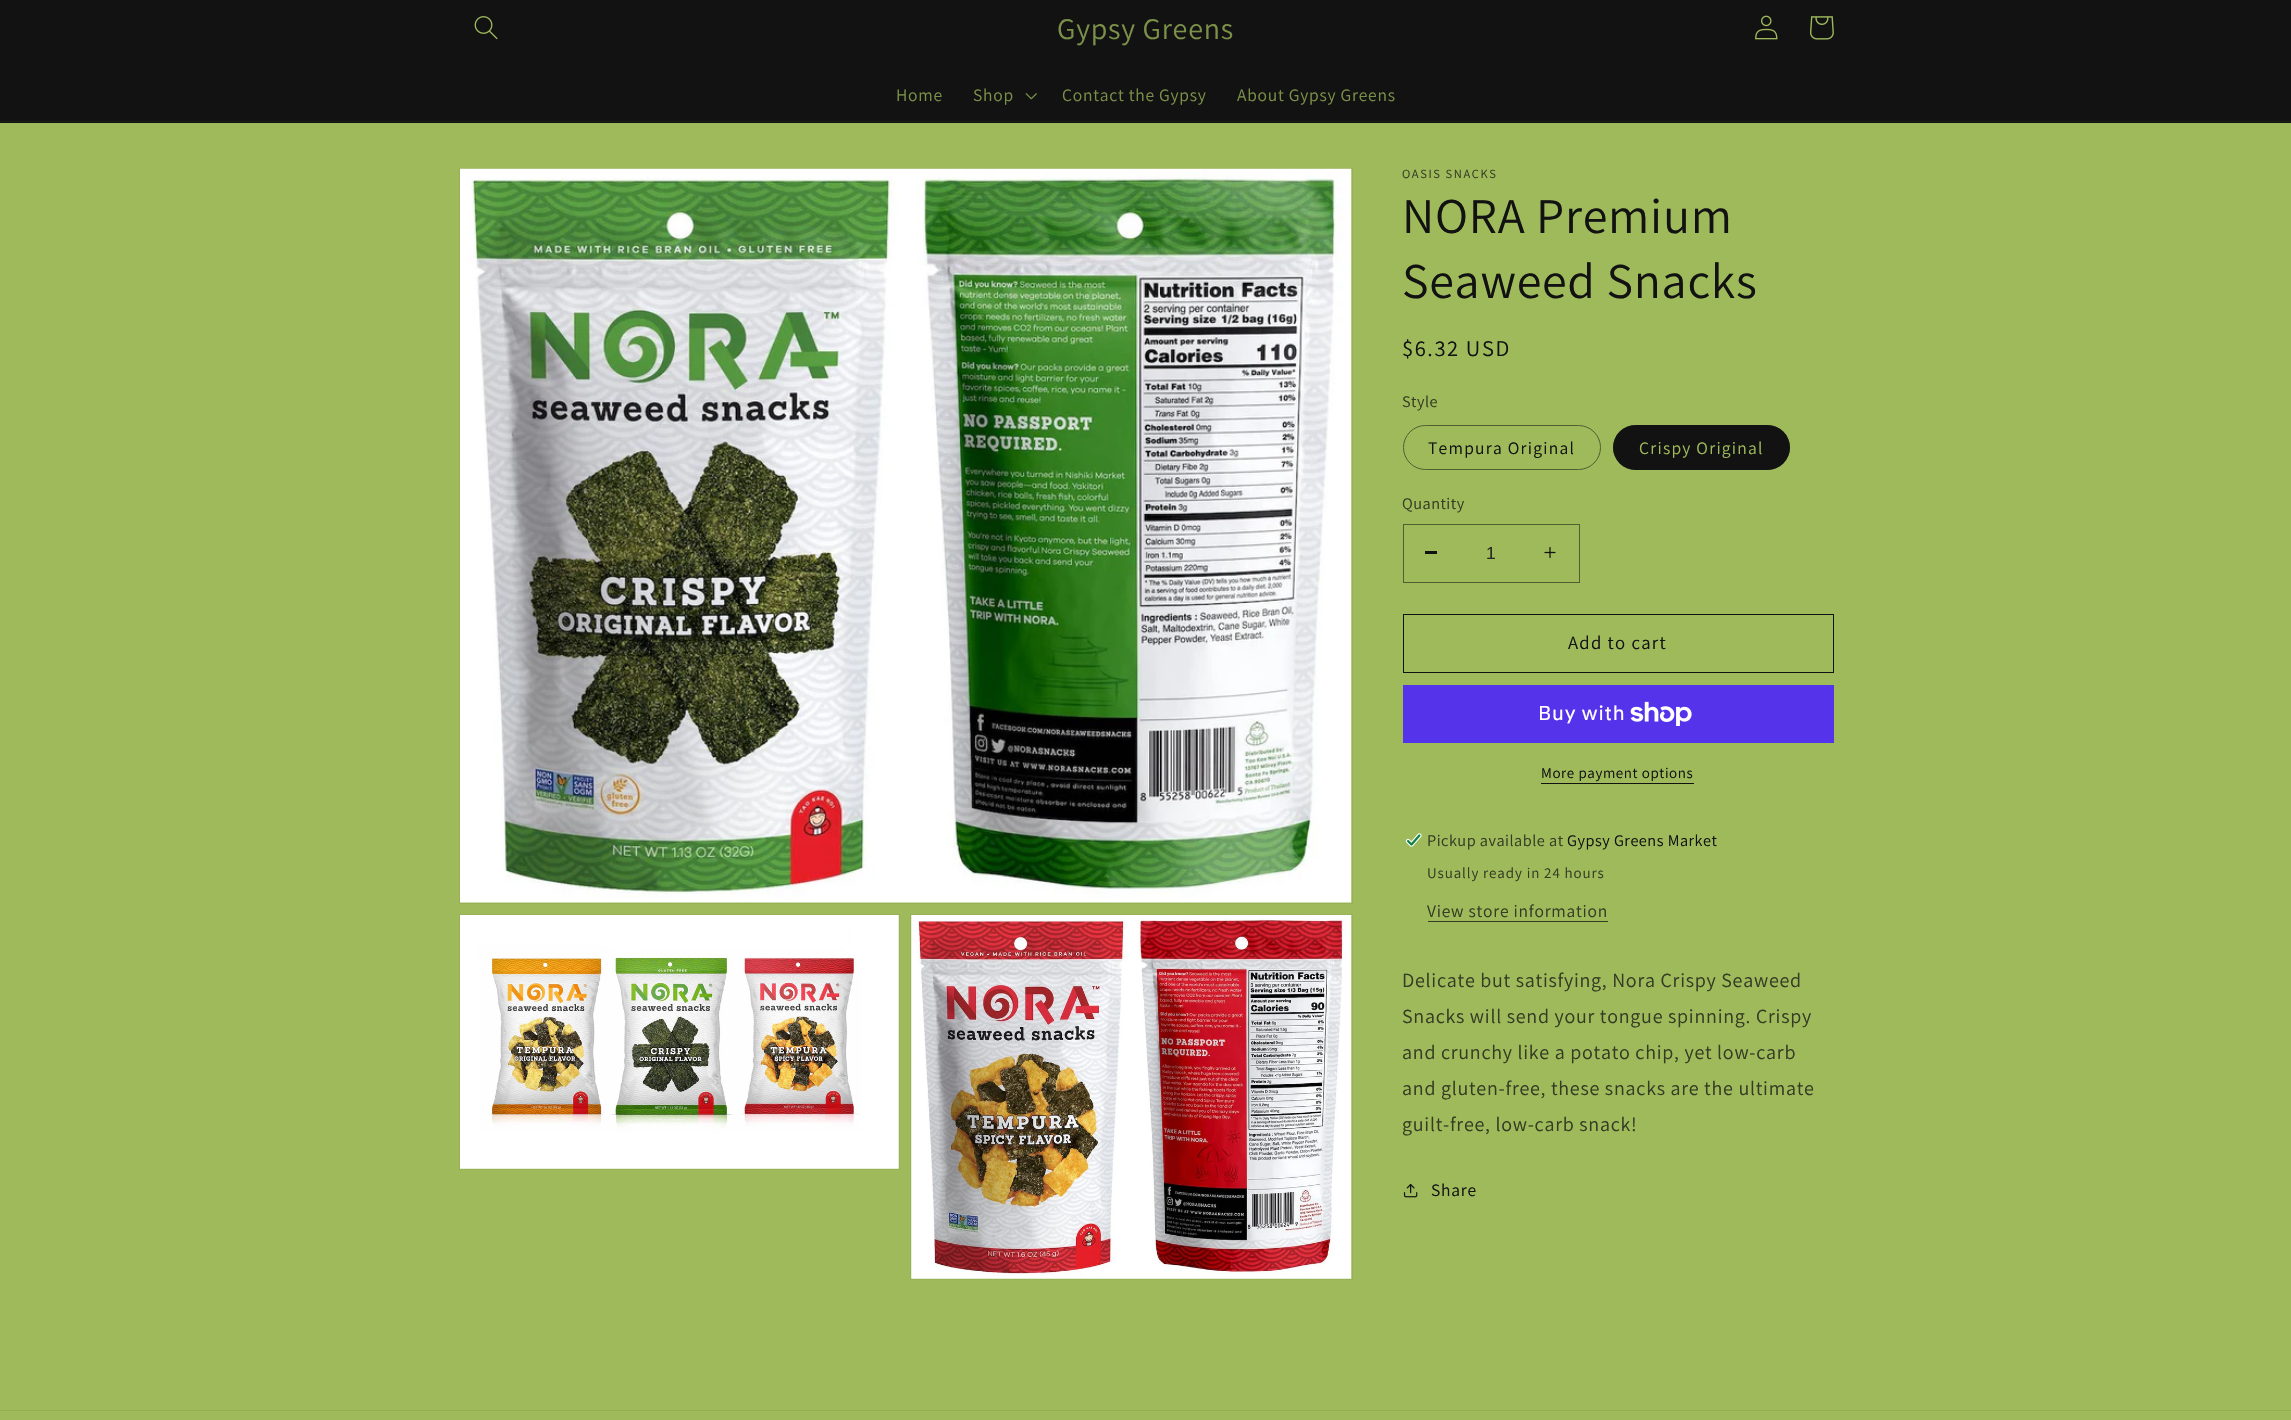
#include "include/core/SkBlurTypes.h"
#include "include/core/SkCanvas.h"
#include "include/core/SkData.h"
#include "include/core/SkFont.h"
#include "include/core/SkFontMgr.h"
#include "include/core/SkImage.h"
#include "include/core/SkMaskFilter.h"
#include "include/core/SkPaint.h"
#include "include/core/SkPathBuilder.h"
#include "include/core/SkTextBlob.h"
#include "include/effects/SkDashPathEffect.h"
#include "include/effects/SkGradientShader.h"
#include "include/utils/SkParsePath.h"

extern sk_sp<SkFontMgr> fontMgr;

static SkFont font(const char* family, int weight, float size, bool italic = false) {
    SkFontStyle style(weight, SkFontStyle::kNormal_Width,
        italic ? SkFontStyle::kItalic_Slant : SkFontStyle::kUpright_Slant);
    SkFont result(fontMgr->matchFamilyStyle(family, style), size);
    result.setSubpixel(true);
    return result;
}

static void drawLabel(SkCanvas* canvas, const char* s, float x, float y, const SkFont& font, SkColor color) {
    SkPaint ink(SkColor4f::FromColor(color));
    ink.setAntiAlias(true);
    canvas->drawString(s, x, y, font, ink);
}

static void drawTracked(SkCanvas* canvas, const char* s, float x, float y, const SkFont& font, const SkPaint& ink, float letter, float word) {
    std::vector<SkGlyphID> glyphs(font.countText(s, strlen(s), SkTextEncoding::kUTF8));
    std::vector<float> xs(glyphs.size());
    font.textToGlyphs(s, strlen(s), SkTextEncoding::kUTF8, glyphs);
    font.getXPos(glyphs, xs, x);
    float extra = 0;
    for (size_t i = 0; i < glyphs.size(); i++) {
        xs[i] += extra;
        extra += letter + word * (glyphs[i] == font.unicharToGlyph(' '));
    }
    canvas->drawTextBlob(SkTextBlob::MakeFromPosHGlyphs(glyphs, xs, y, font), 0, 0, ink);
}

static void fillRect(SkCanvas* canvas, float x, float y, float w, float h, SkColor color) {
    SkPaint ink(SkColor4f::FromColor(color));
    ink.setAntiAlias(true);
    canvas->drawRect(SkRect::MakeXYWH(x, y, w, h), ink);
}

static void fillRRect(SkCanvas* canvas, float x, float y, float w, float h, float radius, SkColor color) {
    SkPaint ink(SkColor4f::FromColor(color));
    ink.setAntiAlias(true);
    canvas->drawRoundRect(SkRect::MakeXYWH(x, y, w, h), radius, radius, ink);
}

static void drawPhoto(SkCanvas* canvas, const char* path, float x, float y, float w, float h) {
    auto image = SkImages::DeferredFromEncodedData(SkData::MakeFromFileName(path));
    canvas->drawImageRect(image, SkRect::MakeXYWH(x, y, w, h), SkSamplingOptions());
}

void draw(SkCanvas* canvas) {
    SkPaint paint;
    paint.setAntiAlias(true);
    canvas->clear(0xFF9EBA5A);
    fillRect(canvas, 0, 0, 2291, 123, 0xFF121212);
    fillRect(canvas, 0, 121, 2291, 1, 0xFF1D1F18);
    drawPhoto(canvas, "assets/img1.png", 474, 16, 24, 24);
    SkFont font1 = font("Assistant", 400, 30);
    paint.setColor(0xFF7B9048);
    drawTracked(canvas, "Gypsy Greens", 1057, 39, font1, paint, 0.75f, 0);
    drawPhoto(canvas, "assets/img2.png", 1755, 15, 23, 25);
    drawPhoto(canvas, "assets/img3.png", 1810, 16, 24, 24);
    SkFont font2 = font("Assistant", 400, 17.5f);
    drawTracked(canvas, "Home", 896, 101, font2, paint, 0.75f, 0);
    drawTracked(canvas, "Shop", 973, 101, font2, paint, 0.75f, 0);
    drawPhoto(canvas, "assets/img4.png", 1025, 93, 12, 7);
    drawTracked(canvas, "Contact the Gypsy", 1062, 101, font2, paint, 0.75f, 0);
    drawTracked(canvas, "About Gypsy Greens", 1237, 101, font2, paint, 0.75f, 0);
    paint.setStroke(true);
    paint.setStrokeWidth(1);
    paint.setColor(0xFF97B256);
    canvas->drawRect(SkRect::MakeXYWH(459.5f, 168.5f, 893, 735), paint);
    drawPhoto(canvas, "assets/img5.png", 460, 168, 892, 735);
    canvas->drawRect(SkRect::MakeXYWH(459.5f, 914.5f, 440, 255), paint);
    drawPhoto(canvas, "assets/img6.png", 460, 915, 439, 254);
    canvas->drawRect(SkRect::MakeXYWH(910.5f, 914.5f, 442, 365), paint);
    drawPhoto(canvas, "assets/img7.png", 911, 915, 441, 364);
    SkFont font3 = font("Assistant", 400, 12.5f);
    paint.setStroke(false);
    paint.setColor(0xFF353C24);
    drawTracked(canvas, "OASIS SNACKS", 1402, 178, font3, paint, 1.6f, 0);
    SkFont font4 = font("Assistant", 400, 50);
    paint.setColor(0xFF121212);
    drawTracked(canvas, "NORA Premium", 1402, 233, font4, paint, 0.75f, 0);
    drawTracked(canvas, "Seaweed Snacks", 1402, 298, font4, paint, 0.75f, 0);
    SkFont font5 = font("Assistant", 400, 22.5f);
    drawTracked(canvas, "$6.32 USD", 1402, 356, font5, paint, 1.6f, 0);
    SkFont font6 = font("Assistant", 400, 16.25f);
    paint.setColor(0xFF353C24);
    drawTracked(canvas, "Style", 1402, 407, font6, paint, 0.5f, 0);
    paint.setStroke(true);
    paint.setColor(0xFF515E32);
    canvas->drawRoundRect(SkRect::MakeXYWH(1403.5f, 425.5f, 197, 44), 22, 22, paint);
    paint.setStroke(false);
    paint.setColor(0xFF121212);
    drawTracked(canvas, "Tempura Original", 1428, 454, font2, paint, 1.25f, 0);
    fillRRect(canvas, 1613, 425, 177, 45, 22.5f, 0xFF121212);
    paint.setStroke(true);
    paint.setColor(0x8C121212);
    canvas->drawRoundRect(SkRect::MakeXYWH(1613.5f, 425.5f, 176, 44), 22, 22, paint);
    paint.setStroke(false);
    paint.setColor(0xFF9EBA5A);
    drawTracked(canvas, "Crispy Original", 1639, 454, font2, paint, 1.25f, 0);
    paint.setColor(0xFF353C24);
    drawTracked(canvas, "Quantity", 1402, 509, font6, paint, 0.5f, 0);
    fillRect(canvas, 1425, 551, 12, 3, 0xFF121212);
    drawPhoto(canvas, "assets/img8.png", 1544, 547, 12, 11);
    paint.setStroke(true);
    paint.setColor(0xFF515E32);
    canvas->drawRect(SkRect::MakeXYWH(1403.5f, 524.5f, 176, 58), paint);
    SkFont font7 = font("Liberation Sans", 400, 17.5f);
    drawLabel(canvas, "1", 1486, 559, font7, 0xFF272B1D);
    paint.setColor(0xFF121212);
    canvas->drawRect(SkRect::MakeXYWH(1403.5f, 614.5f, 430, 58), paint);
    SkFont font8 = font("Assistant", 400, 18.75f);
    paint.setStroke(false);
    drawTracked(canvas, "Add to cart", 1568, 649, font8, paint, 1.25f, 0);
    fillRect(canvas, 1403, 685, 431, 58, 0xFF5433EB);
    SkFont font9 = font("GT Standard", 400, 20);
    paint.setColor(0xFFFFFFFF);
    drawTracked(canvas, "Buy with", 1538, 720, font9, paint, 0.75f, 0);
    drawPhoto(canvas, "assets/img9.png", 1630, 701, 62, 25);
    SkFont font10 = font("Assistant", 400, 15);
    paint.setColor(0xFF121212);
    drawTracked(canvas, "More payment options", 1541, 778, font10, paint, 0.6f, 0);
    fillRect(canvas, 1541, 783, 153, 1, 0xFF121212);
    drawPhoto(canvas, "assets/img10.png", 1405, 833, 17, 14);
    paint.setColor(0xFF353C24);
    drawTracked(canvas, "Pickup available at", 1427, 846, font6, paint, 0.5f, 0);
    paint.setColor(0xFF121212);
    drawTracked(canvas, "Gypsy Greens Market", 1567, 846, font6, paint, 0.5f, 0);
    paint.setColor(0xFF353C24);
    drawTracked(canvas, "Usually ready in 24 hours", 1427, 878, font10, paint, 0.9f, 0);
    drawTracked(canvas, "View store information", 1427, 917, font2, paint, 0.75f, 0);
    fillRect(canvas, 1428, 921, 180, 1, 0xFF353C24);
    SkFont font11 = font("Assistant", 400, 20);
    drawTracked(canvas, "Delicate but satisfying, Nora Crispy Seaweed", 1402, 987, font11, paint, 0.75f, 0);
    drawTracked(canvas, "Snacks will send your tongue spinning. Crispy", 1402, 1023, font11, paint, 0.75f, 0);
    drawTracked(canvas, "and crunchy like a potato chip, yet low-carb", 1402, 1059, font11, paint, 0.75f, 0);
    drawTracked(canvas, "and gluten-free, these snacks are the ultimate", 1402, 1095, font11, paint, 0.75f, 0);
    drawTracked(canvas, "guilt-free, low-carb snack!", 1402, 1131, font11, paint, 0.75f, 0);
    drawPhoto(canvas, "assets/img11.png", 1403, 1183, 15, 15);
    paint.setColor(0xFF121212);
    drawTracked(canvas, "Share", 1431, 1196, font2, paint, 0.75f, 0);
    fillRect(canvas, 0, 1410, 2291, 1, 0xFF93AD54);
}
